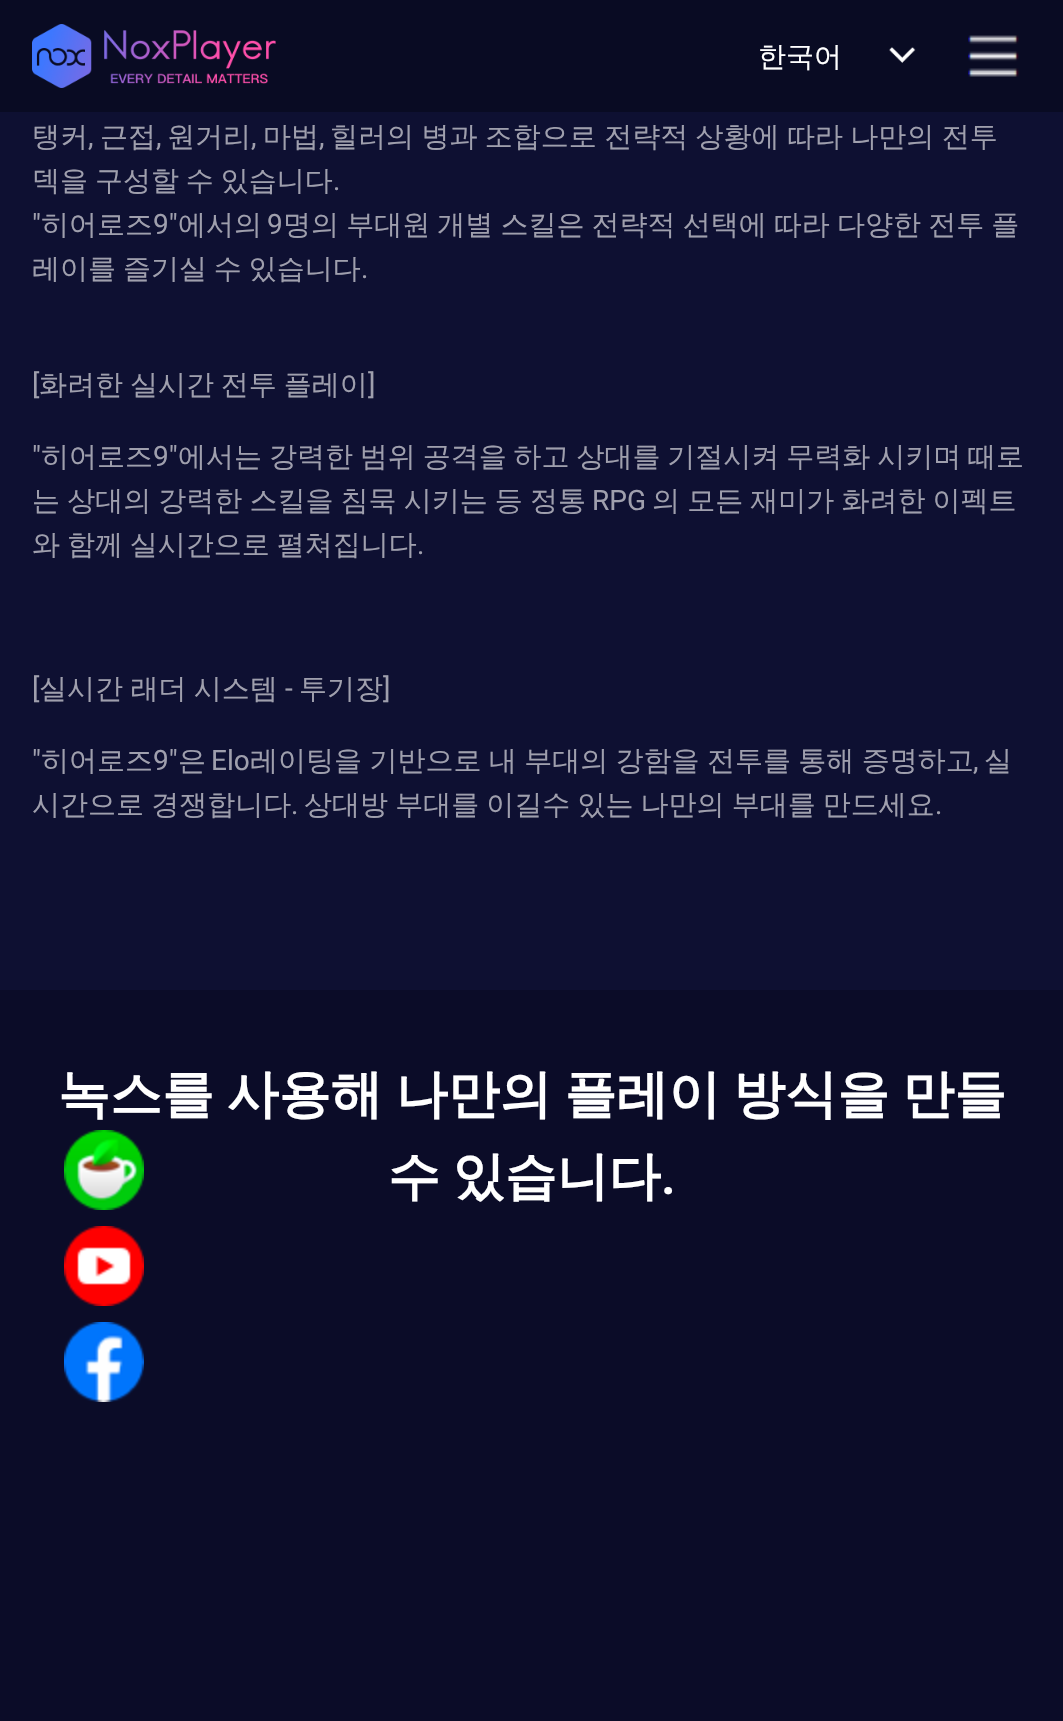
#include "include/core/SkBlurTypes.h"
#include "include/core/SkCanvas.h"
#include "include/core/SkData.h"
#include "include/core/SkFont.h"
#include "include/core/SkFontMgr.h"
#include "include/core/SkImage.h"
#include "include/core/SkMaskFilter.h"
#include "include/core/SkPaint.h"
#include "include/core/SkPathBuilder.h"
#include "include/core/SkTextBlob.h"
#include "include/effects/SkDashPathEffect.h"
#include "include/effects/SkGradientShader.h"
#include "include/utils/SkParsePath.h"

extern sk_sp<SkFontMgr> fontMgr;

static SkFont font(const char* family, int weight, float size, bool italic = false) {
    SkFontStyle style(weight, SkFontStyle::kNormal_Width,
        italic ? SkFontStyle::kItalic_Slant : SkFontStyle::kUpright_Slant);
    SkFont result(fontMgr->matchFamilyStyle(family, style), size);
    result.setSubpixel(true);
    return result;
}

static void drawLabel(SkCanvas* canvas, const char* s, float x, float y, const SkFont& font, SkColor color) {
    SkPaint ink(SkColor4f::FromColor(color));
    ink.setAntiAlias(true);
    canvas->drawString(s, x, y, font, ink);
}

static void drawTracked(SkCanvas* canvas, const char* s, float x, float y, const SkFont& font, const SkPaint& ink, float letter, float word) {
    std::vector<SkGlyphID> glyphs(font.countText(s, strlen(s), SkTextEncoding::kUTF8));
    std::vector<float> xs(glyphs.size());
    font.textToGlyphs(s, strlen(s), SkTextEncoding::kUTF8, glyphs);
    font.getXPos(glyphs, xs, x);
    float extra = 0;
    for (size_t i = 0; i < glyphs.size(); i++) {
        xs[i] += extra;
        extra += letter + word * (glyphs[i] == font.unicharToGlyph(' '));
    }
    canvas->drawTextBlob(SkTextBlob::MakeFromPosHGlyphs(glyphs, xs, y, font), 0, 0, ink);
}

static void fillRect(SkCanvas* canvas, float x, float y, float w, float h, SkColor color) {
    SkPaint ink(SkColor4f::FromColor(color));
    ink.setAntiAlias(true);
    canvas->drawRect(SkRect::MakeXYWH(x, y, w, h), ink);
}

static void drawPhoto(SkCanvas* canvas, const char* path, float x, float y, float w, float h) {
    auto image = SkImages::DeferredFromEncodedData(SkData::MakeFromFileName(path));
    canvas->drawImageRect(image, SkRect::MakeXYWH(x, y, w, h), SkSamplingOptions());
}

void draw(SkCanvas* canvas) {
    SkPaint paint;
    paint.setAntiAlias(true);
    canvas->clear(0xFF0E1032);
    fillRect(canvas, 0, 0, 1063, 112, 0xFF090B23);
    drawPhoto(canvas, "assets/img1.png", 32, 24, 244, 64);
    SkFont font1 = font("WenQuanYi Zen Hei", 500, 28);
    drawLabel(canvas, "한국어", 758, 66, font1, 0xFFFFFFFF);
    drawPhoto(canvas, "assets/img2.png", 889, 47, 27, 16);
    drawPhoto(canvas, "assets/img3.png", 968, 35, 51, 42);
    drawLabel(canvas, "탱커", 32, 146, font1, 0xFF9F9FAD);
    SkFont font2 = font("Roboto", 400, 28);
    drawLabel(canvas, ",", 88, 146, font2, 0xFF9F9FAD);
    drawLabel(canvas, "근접", 100, 146, font1, 0xFF9F9FAD);
    drawLabel(canvas, ",", 156, 146, font2, 0xFF9F9FAD);
    drawLabel(canvas, "원거리", 167, 146, font1, 0xFF9F9FAD);
    drawLabel(canvas, ",", 251, 146, font2, 0xFF9F9FAD);
    drawLabel(canvas, "마법", 263, 146, font1, 0xFF9F9FAD);
    drawLabel(canvas, ",", 319, 146, font2, 0xFF9F9FAD);
    paint.setColor(0xFF9F9FAD);
    drawTracked(canvas, "힐러의 병과 조합으로 전략적 상황에 따라 나만의 전투", 330, 146, font1, paint, 0, -1);
    drawTracked(canvas, "덱을 구성할 수 있습니다", 32, 190, font1, paint, 0, -1.5f);
    drawLabel(canvas, ".", 333, 190, font2, 0xFF9F9FAD);
    drawLabel(canvas, "\"", 32, 234, font2, 0xFF9F9FAD);
    drawLabel(canvas, "히어로즈", 41, 234, font1, 0xFF9F9FAD);
    drawLabel(canvas, "9\"", 153, 234, font2, 0xFF9F9FAD);
    drawLabel(canvas, "에서의", 178, 234, font1, 0xFF9F9FAD);
    drawLabel(canvas, "9", 267, 234, font2, 0xFF9F9FAD);
    drawTracked(canvas, "명의 부대원 개별 스킬은 전략적 선택에 따라 다양한 전투 플", 283, 234, font1, paint, 0, -1.25f);
    drawTracked(canvas, "레이를 즐기실 수 있습니다", 32, 278, font1, paint, 0, -1.5f);
    drawLabel(canvas, ".", 361, 278, font2, 0xFF9F9FAD);
    drawLabel(canvas, "[", 32, 394, font2, 0xFF9F9FAD);
    drawTracked(canvas, "화려한 실시간 전투 플레이", 39, 394, font1, paint, 0, -1.5f);
    drawLabel(canvas, "]", 368, 394, font2, 0xFF9F9FAD);
    drawLabel(canvas, "\"", 32, 466, font2, 0xFF9F9FAD);
    drawLabel(canvas, "히어로즈", 41, 466, font1, 0xFF9F9FAD);
    drawLabel(canvas, "9\"", 153, 466, font2, 0xFF9F9FAD);
    drawTracked(canvas, "에서는 강력한 범위 공격을 하고 상대를 기절시켜 무력화 시키며 때로", 178, 466, font1, paint, 0, -1.5f);
    drawTracked(canvas, "는 상대의 강력한 스킬을 침묵 시키는 등 정통", 32, 510, font1, paint, 0, -1.25f);
    drawLabel(canvas, "RPG", 592, 510, font2, 0xFF9F9FAD);
    drawTracked(canvas, "의 모든 재미가 화려한 이펙트", 652, 510, font1, paint, 0, -1.25f);
    drawTracked(canvas, "와 함께 실시간으로 펼쳐집니다", 32, 554, font1, paint, 0, -1.5f);
    drawLabel(canvas, ".", 417, 554, font2, 0xFF9F9FAD);
    drawLabel(canvas, "[", 32, 698, font2, 0xFF9F9FAD);
    drawTracked(canvas, "실시간 래더 시스템", 39, 698, font1, paint, 0, -1);
    drawLabel(canvas, "-", 285, 698, font2, 0xFF9F9FAD);
    drawLabel(canvas, "투기장", 299, 698, font1, 0xFF9F9FAD);
    drawLabel(canvas, "]", 383, 698, font2, 0xFF9F9FAD);
    drawLabel(canvas, "\"", 32, 770, font2, 0xFF9F9FAD);
    drawLabel(canvas, "히어로즈", 41, 770, font1, 0xFF9F9FAD);
    drawLabel(canvas, "9\"", 153, 770, font2, 0xFF9F9FAD);
    drawLabel(canvas, "은", 178, 770, font1, 0xFF9F9FAD);
    drawLabel(canvas, "Elo", 211, 770, font2, 0xFF9F9FAD);
    drawTracked(canvas, "레이팅을 기반으로 내 부대의 강함을 전투를 통해 증명하고", 250, 770, font1, paint, 0, -1);
    drawLabel(canvas, ",", 973, 770, font2, 0xFF9F9FAD);
    drawLabel(canvas, "실", 984, 770, font1, 0xFF9F9FAD);
    drawTracked(canvas, "시간으로 경쟁합니다", 32, 814, font1, paint, 0, -1.25f);
    drawLabel(canvas, ".", 291, 814, font2, 0xFF9F9FAD);
    drawTracked(canvas, "상대방 부대를 이길수 있는 나만의 부대를 만드세요", 304, 814, font1, paint, 0, -1.25f);
    drawLabel(canvas, ".", 935, 814, font2, 0xFF9F9FAD);
    fillRect(canvas, 0, 990, 1063, 731, 0xFF0B0C28);
    SkFont font3 = font("WenQuanYi Zen Hei", 700, 52);
    paint.setColor(0xFFFFFFFF);
    drawTracked(canvas, "녹스를 사용해 나만의 플레이 방식을 만들", 58, 1112, font3, paint, 0, -2.75f);
    drawTracked(canvas, "수 있습니다", 388, 1194, font3, paint, 0, -2.75f);
    SkFont font4 = font("Roboto", 600, 52);
    drawLabel(canvas, ".", 661, 1194, font4, 0xFFFFFFFF);
    drawPhoto(canvas, "assets/img4.png", 64, 1130, 80, 80);
    drawPhoto(canvas, "assets/img5.png", 64, 1226, 80, 80);
    drawPhoto(canvas, "assets/img6.png", 64, 1322, 80, 80);
}
